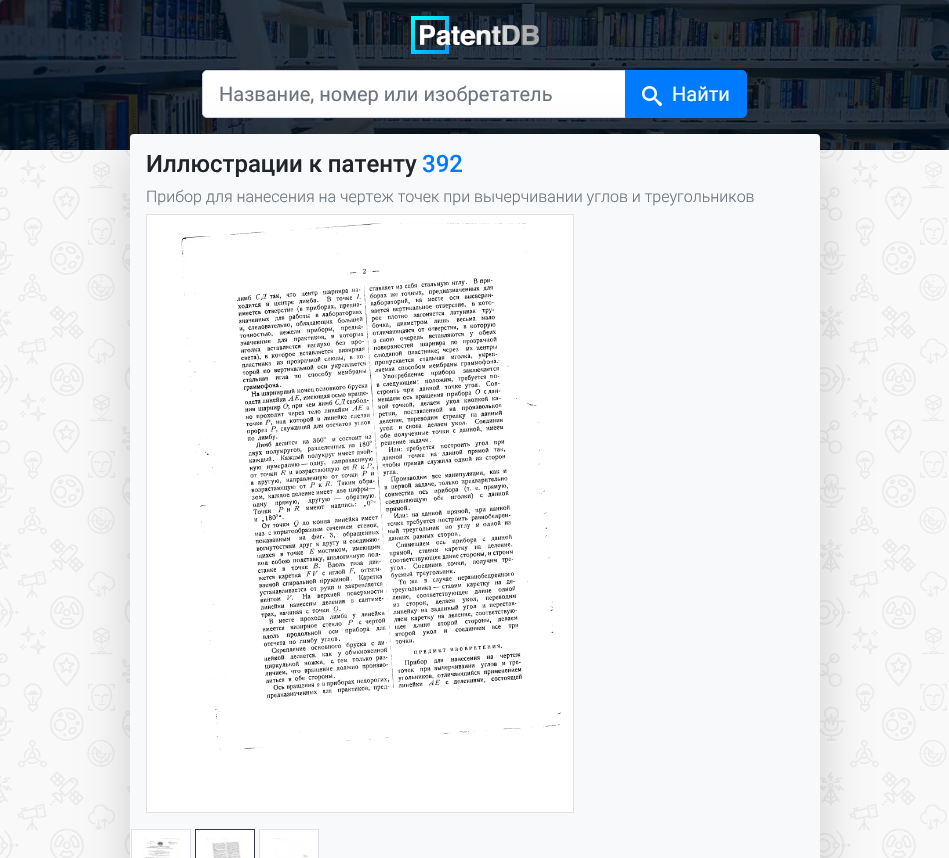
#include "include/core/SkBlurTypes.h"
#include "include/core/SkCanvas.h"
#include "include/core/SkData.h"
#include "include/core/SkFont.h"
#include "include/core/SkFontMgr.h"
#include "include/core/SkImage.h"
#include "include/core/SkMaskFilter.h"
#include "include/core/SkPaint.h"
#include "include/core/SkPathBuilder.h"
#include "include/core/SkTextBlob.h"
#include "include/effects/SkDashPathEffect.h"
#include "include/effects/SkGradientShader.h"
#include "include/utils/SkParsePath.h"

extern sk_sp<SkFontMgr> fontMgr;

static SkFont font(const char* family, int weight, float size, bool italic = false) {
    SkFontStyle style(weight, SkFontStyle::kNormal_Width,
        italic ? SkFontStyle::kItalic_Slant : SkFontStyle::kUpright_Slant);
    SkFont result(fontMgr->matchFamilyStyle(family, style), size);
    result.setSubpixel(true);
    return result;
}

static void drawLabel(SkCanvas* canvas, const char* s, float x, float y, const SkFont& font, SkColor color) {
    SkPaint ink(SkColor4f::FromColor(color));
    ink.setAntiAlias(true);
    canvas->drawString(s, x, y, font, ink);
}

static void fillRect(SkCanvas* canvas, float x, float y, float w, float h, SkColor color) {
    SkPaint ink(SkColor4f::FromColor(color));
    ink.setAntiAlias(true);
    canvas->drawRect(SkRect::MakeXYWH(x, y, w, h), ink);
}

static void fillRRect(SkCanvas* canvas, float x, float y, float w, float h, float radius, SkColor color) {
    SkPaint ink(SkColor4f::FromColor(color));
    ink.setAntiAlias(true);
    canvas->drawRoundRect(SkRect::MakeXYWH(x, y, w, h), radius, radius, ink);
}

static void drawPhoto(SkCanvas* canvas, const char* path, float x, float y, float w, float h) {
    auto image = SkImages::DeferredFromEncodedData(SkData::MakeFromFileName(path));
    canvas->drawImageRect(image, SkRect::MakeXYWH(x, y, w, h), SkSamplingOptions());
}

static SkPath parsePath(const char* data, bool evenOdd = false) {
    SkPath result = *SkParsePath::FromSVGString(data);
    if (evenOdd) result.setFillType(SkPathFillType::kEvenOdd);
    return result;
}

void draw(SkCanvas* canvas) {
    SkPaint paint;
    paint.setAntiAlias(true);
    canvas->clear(0xFFF9F9F9);
    drawPhoto(canvas, "assets/img1.png", 0, 0, 947, 858);
    drawPhoto(canvas, "assets/img2.png", 0, 0, 949, 150);
    fillRect(canvas, 0, 0, 949, 150, 0xCC000E1F);
    drawPhoto(canvas, "assets/img3.png", 411, 16, 128, 38);
    paint.setColor(0xFFFFFFFF);
    canvas->drawPath(parsePath("M207 70.5H625.5V117.5H207C204.5 117.5 202.5 115.5 202.5 113V75C202.5 72.5 204.5 70.5 207 70.5Z"), paint);
    paint.setStroke(true);
    paint.setStrokeWidth(1);
    paint.setColor(0xFFCED4DA);
    canvas->drawPath(parsePath("M207 70.5H625.5V117.5H207C204.5 117.5 202.5 115.5 202.5 113V75C202.5 72.5 204.5 70.5 207 70.5Z"), paint);
    SkFont font1 = font("Roboto", 400, 20);
    drawLabel(canvas, "Название, номер или изобретатель", 219, 101, font1, 0xFF6C757D);
    paint.setStroke(false);
    paint.setColor(0x2E000000);
    paint.setMaskFilter(SkMaskFilter::MakeBlur(kNormal_SkBlurStyle, 24));
    canvas->drawRoundRect(SkRect::MakeXYWH(130, 150, 690, 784), 4, 4, paint);
    paint.setMaskFilter(nullptr);
    paint.setColor(0xFF007BFF);
    canvas->drawPath(parsePath("M625.5 70.5H742C744.5 70.5 746.5 72.5 746.5 75V113C746.5 115.5 744.5 117.5 742 117.5H625.5Z"), paint);
    paint.setStroke(true);
    canvas->drawPath(parsePath("M625.5 70.5H742C744.5 70.5 746.5 72.5 746.5 75V113C746.5 115.5 744.5 117.5 742 117.5H625.5Z"), paint);
    drawPhoto(canvas, "assets/img4.png", 642, 86, 20, 20);
    drawLabel(canvas, "Найти", 672, 101, font1, 0xFFFFFFFF);
    fillRRect(canvas, 130, 134, 690, 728, 4, 0xFFF8F9FA);
    SkFont font2 = font("Roboto", 500, 24);
    drawLabel(canvas, "Иллюстрации к патенту", 146, 172, font2, 0xFF212529);
    drawLabel(canvas, "392", 422, 172, font2, 0xFF007BFF);
    SkFont font3 = font("Roboto", 300, 16);
    drawLabel(canvas, "Прибор для нанесения на чертеж точек при вычерчивании углов и треугольников", 146, 202, font3, 0xFF6C757D);
    paint.setStroke(false);
    paint.setColor(0xFFFFFFFF);
    canvas->drawRect(SkRect::MakeXYWH(146.5f, 214.5f, 427, 598), paint);
    paint.setStroke(true);
    paint.setColor(0xFFDEE2E6);
    canvas->drawRect(SkRect::MakeXYWH(146.5f, 214.5f, 427, 598), paint);
    drawPhoto(canvas, "assets/img5.png", 181, 223, 380, 528);
    paint.setStroke(false);
    paint.setColor(0xFFFFFFFF);
    canvas->drawRect(SkRect::MakeXYWH(131.5f, 829.5f, 59, 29), paint);
    paint.setStroke(true);
    paint.setColor(0xFFDEE2E6);
    canvas->drawRect(SkRect::MakeXYWH(131.5f, 829.5f, 59, 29), paint);
    drawPhoto(canvas, "assets/img6.png", 143, 838, 37, 20);
    paint.setStroke(false);
    paint.setColor(0xFFFFFFFF);
    canvas->drawRect(SkRect::MakeXYWH(195.5f, 829.5f, 59, 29), paint);
    paint.setStroke(true);
    paint.setColor(0xFF343A40);
    canvas->drawRect(SkRect::MakeXYWH(195.5f, 829.5f, 59, 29), paint);
    drawPhoto(canvas, "assets/img7.png", 206, 838, 35, 20);
    paint.setStroke(false);
    paint.setColor(0xFFFFFFFF);
    canvas->drawRect(SkRect::MakeXYWH(259.5f, 829.5f, 59, 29), paint);
    paint.setStroke(true);
    paint.setColor(0xFFDEE2E6);
    canvas->drawRect(SkRect::MakeXYWH(259.5f, 829.5f, 59, 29), paint);
    drawPhoto(canvas, "assets/img8.png", 274, 838, 34, 20);
}
